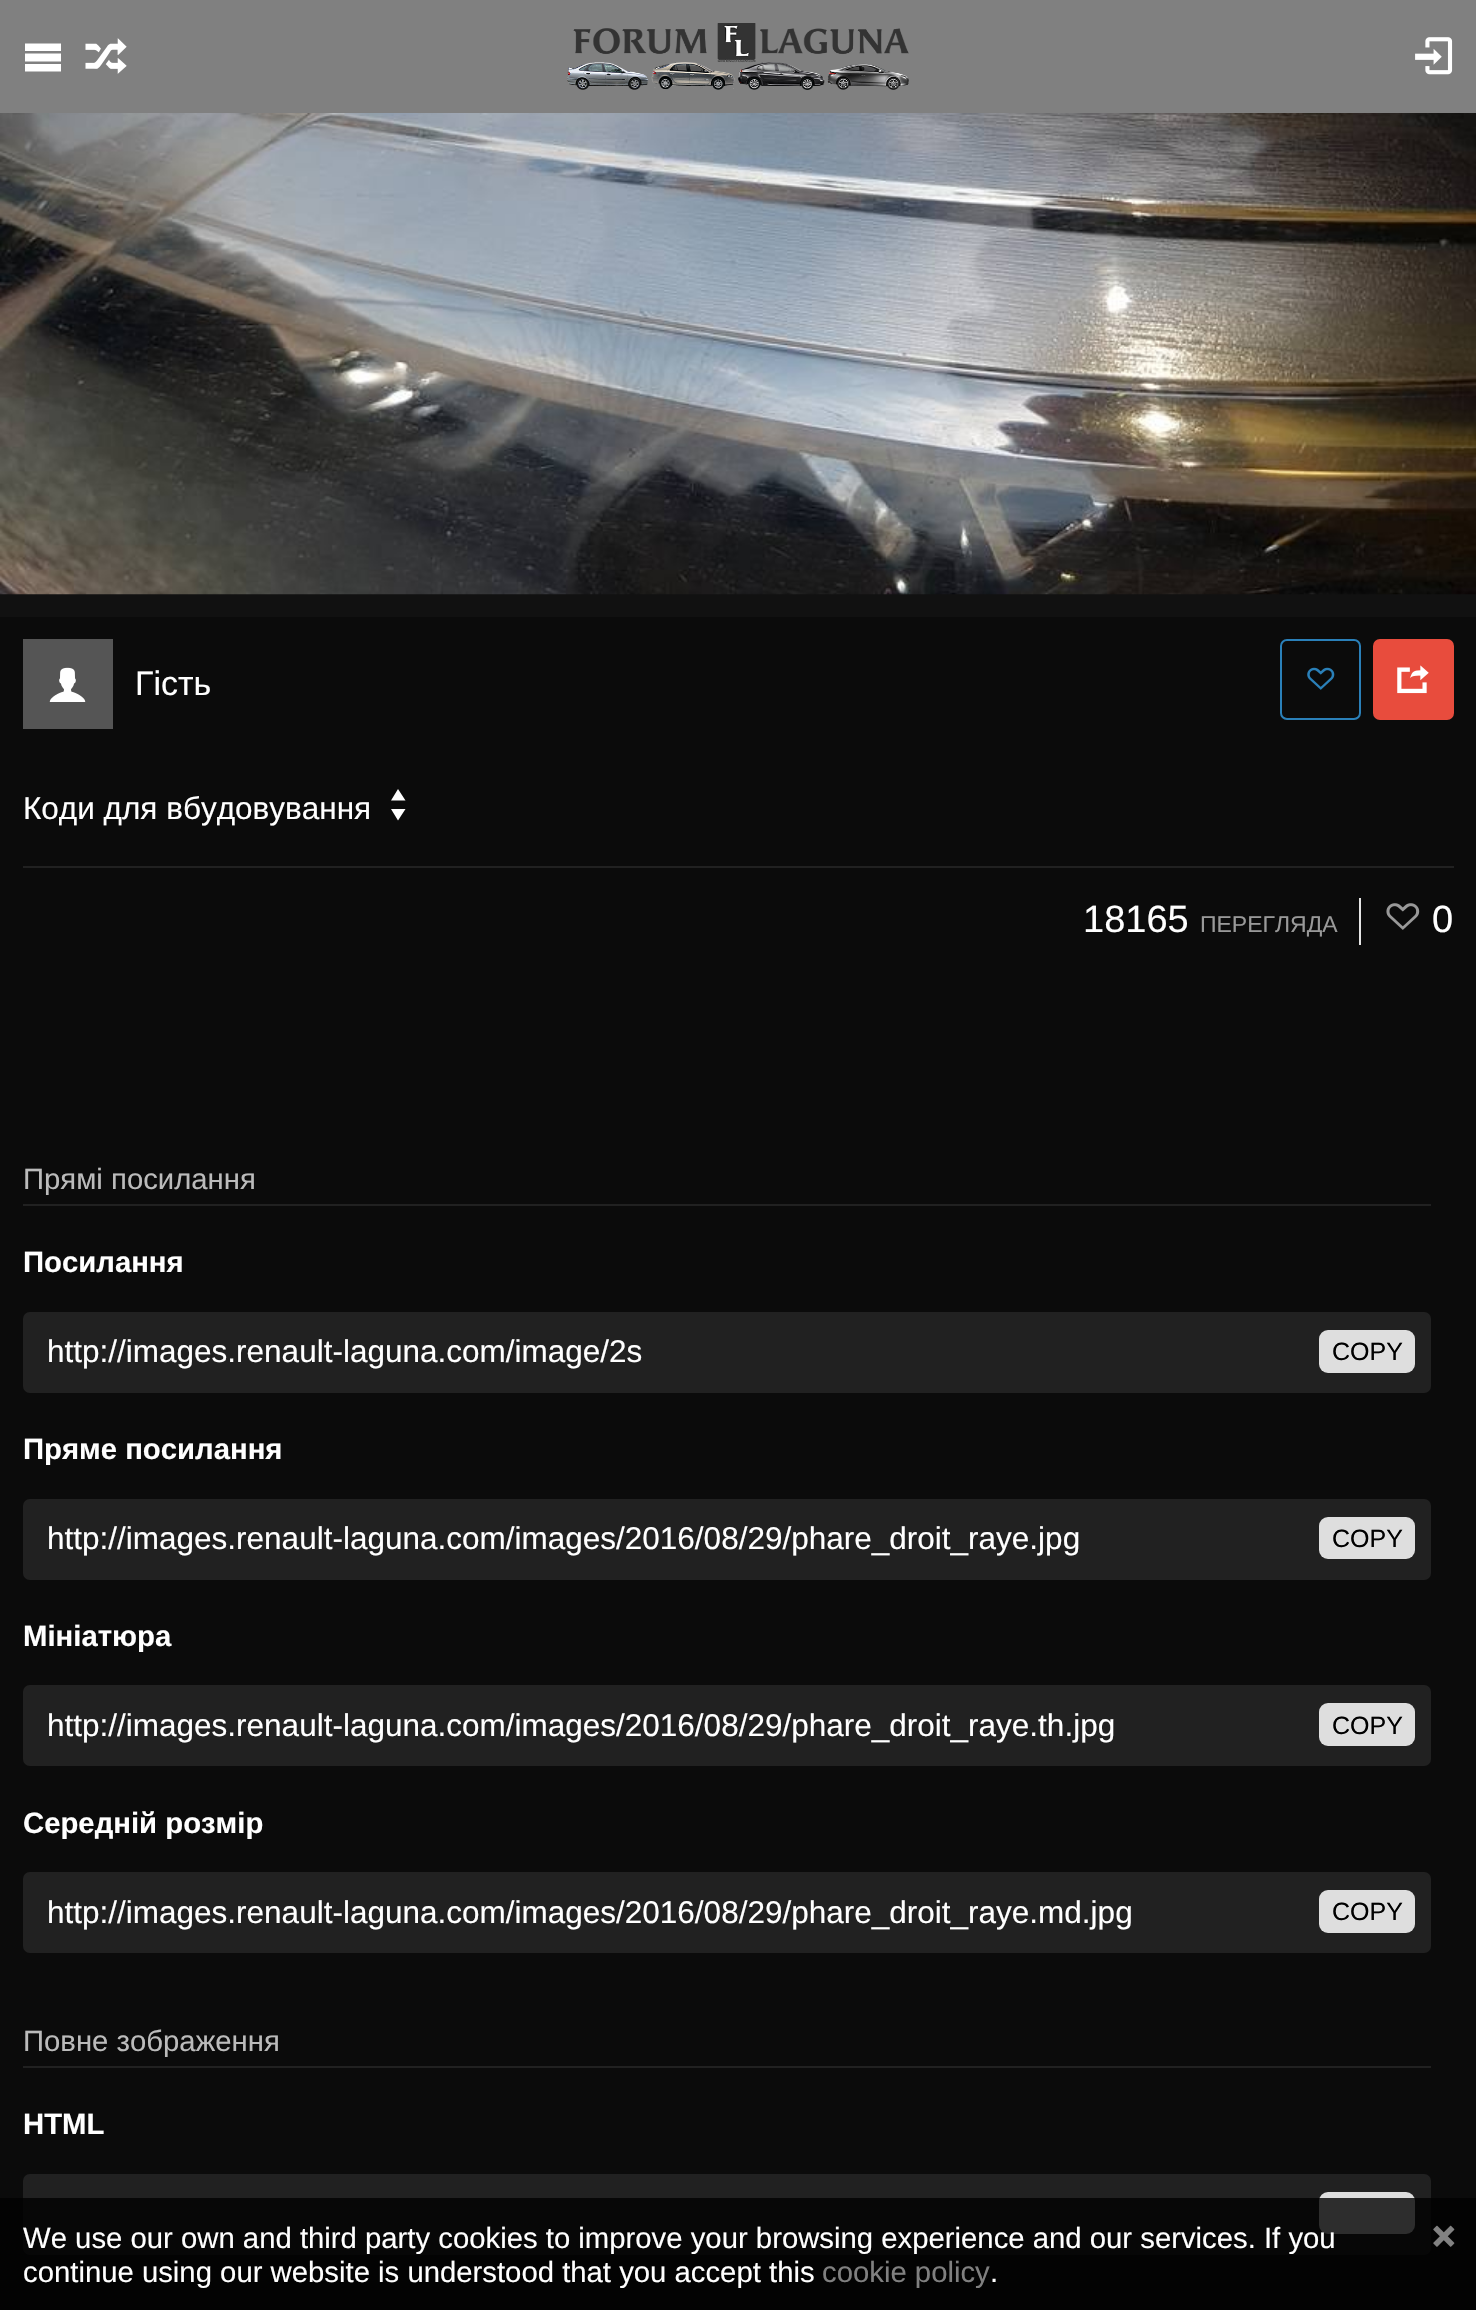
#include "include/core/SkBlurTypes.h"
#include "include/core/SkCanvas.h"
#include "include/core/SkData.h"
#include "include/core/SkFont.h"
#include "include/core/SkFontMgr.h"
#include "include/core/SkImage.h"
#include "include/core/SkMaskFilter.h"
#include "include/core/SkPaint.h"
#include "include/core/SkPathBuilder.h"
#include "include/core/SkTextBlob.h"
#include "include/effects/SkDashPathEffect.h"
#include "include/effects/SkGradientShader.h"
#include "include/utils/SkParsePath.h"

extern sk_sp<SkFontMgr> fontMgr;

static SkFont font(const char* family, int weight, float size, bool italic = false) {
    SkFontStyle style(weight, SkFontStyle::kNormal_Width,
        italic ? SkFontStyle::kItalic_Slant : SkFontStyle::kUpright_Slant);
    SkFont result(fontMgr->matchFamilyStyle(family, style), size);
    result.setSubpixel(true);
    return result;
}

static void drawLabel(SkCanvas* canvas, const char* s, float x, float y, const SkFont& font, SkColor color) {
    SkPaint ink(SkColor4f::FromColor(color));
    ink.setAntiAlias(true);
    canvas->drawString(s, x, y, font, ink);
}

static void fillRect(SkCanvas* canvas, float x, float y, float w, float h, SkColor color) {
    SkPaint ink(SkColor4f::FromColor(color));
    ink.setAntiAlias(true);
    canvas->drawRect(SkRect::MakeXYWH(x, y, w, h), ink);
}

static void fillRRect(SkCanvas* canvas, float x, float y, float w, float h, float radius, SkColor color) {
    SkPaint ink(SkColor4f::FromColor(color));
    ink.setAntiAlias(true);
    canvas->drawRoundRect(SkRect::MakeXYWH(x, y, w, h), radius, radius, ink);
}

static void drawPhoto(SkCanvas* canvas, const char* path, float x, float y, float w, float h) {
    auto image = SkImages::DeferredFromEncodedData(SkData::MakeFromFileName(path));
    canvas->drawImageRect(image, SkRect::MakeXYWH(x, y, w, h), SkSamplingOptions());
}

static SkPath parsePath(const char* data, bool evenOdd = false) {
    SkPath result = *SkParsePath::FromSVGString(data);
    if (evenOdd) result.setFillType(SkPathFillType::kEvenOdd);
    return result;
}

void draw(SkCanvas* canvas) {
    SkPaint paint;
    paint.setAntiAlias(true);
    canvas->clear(0xFF0B0B0B);
    fillRect(canvas, 0, 0, 1476, 113, 0xFF808080);
    paint.setColor(0xFFFFFFFF);
    canvas->drawPath(parsePath("M25 43.5H61V51H25ZM25 53.5H61V61.5H25ZM25 64H61V71.5H25Z"), paint);
    drawPhoto(canvas, "assets/img1.png", 85, 38, 42, 36);
    drawPhoto(canvas, "assets/img2.png", 567, 23, 342, 67);
    drawPhoto(canvas, "assets/img3.png", 1415, 37, 38, 38);
    fillRect(canvas, 0, 594, 1476, 23, 0xFF111111);
    drawPhoto(canvas, "assets/img4.png", 0, 113, 1476, 482);
    fillRect(canvas, 23, 639, 90, 90, 0xFF555555);
    drawPhoto(canvas, "assets/img5.png", 49, 667, 37, 35);
    SkFont font1 = font("Liberation Sans", 400, 34);
    drawLabel(canvas, "Гість", 135, 695, font1, 0xFFFFFFFF);
    paint.setStroke(true);
    paint.setStrokeWidth(2);
    paint.setColor(0xFF2A80B9);
    canvas->drawRoundRect(SkRect::MakeXYWH(1281, 640, 79, 79), 6, 6, paint);
    drawPhoto(canvas, "assets/img6.png", 1307, 667, 28, 23);
    fillRRect(canvas, 1373, 639, 81, 81, 7, 0xFFE84C3D);
    drawPhoto(canvas, "assets/img7.png", 1397, 665, 32, 29);
    fillRect(canvas, 23, 866, 1431, 2, 0xFF212121);
    SkFont font2 = font("Liberation Sans", 400, 31.5f);
    drawLabel(canvas, "Коди для вбудовування", 23, 819, font2, 0xFFFFFFFF);
    paint.setStroke(false);
    paint.setColor(0xFFFFFFFF);
    canvas->drawPath(parsePath("M398 789L391 800.5H405.5ZM398 820.5L405.5 809H391Z"), paint);
    SkFont font3 = font("Liberation Sans", 400, 38);
    drawLabel(canvas, "18165", 1083, 932, font3, 0xFFFFFFFF);
    SkFont font4 = font("Liberation Sans", 400, 23);
    drawLabel(canvas, "ПЕРЕГЛЯДА", 1200, 932, font4, 0xFF999999);
    fillRect(canvas, 1359, 898, 2, 47, 0xFFE5E5E5);
    drawPhoto(canvas, "assets/img8.png", 1386, 903, 34, 27);
    drawLabel(canvas, "0", 1432, 932, font3, 0xFFFFFFFF);
    fillRect(canvas, 23, 1204, 1408, 2, 0xFF212121);
    SkFont font5 = font("Liberation Sans", 400, 29.3f);
    drawLabel(canvas, "Прямі посилання", 23, 1189, font5, 0xFFBBBBBB);
    SkFont font6 = font("Liberation Sans", 700, 29.3f);
    drawLabel(canvas, "Посилання", 23, 1272, font6, 0xFFFFFFFF);
    paint.setColor(0xFF212121);
    canvas->drawRoundRect(SkRect::MakeXYWH(24, 1313, 1406, 79), 6, 6, paint);
    paint.setStroke(true);
    canvas->drawRoundRect(SkRect::MakeXYWH(24, 1313, 1406, 79), 6, 6, paint);
    drawLabel(canvas, "http://images.renault-laguna.com/image/2s", 47, 1362, font2, 0xFFFFFFFF);
    fillRRect(canvas, 1319, 1330, 96, 43, 9, 0xFFDEDEDE);
    SkFont font7 = font("Liberation Sans", 400, 25);
    drawLabel(canvas, "COPY", 1332, 1360, font7, 0xFF000000);
    drawLabel(canvas, "Пряме посилання", 23, 1459, font6, 0xFFFFFFFF);
    paint.setStroke(false);
    canvas->drawRoundRect(SkRect::MakeXYWH(24, 1500, 1406, 79), 6, 6, paint);
    paint.setStroke(true);
    canvas->drawRoundRect(SkRect::MakeXYWH(24, 1500, 1406, 79), 6, 6, paint);
    drawLabel(canvas, "http://images.renault-laguna.com/images/2016/08/29/phare_droit_raye.jpg", 47, 1549, font2, 0xFFFFFFFF);
    fillRRect(canvas, 1319, 1517, 96, 42, 9, 0xFFDEDEDE);
    drawLabel(canvas, "COPY", 1332, 1547, font7, 0xFF000000);
    drawLabel(canvas, "Мініатюра", 23, 1646, font6, 0xFFFFFFFF);
    paint.setStroke(false);
    canvas->drawRoundRect(SkRect::MakeXYWH(24, 1686, 1406, 79), 6, 6, paint);
    paint.setStroke(true);
    canvas->drawRoundRect(SkRect::MakeXYWH(24, 1686, 1406, 79), 6, 6, paint);
    drawLabel(canvas, "http://images.renault-laguna.com/images/2016/08/29/phare_droit_raye.th.jpg", 47, 1736, font2, 0xFFFFFFFF);
    fillRRect(canvas, 1319, 1703, 96, 43, 9, 0xFFDEDEDE);
    drawLabel(canvas, "COPY", 1332, 1734, font7, 0xFF000000);
    drawLabel(canvas, "Середній розмір", 23, 1833, font6, 0xFFFFFFFF);
    paint.setStroke(false);
    canvas->drawRoundRect(SkRect::MakeXYWH(24, 1873, 1406, 79), 6, 6, paint);
    paint.setStroke(true);
    canvas->drawRoundRect(SkRect::MakeXYWH(24, 1873, 1406, 79), 6, 6, paint);
    drawLabel(canvas, "http://images.renault-laguna.com/images/2016/08/29/phare_droit_raye.md.jpg", 47, 1923, font2, 0xFFFFFFFF);
    fillRRect(canvas, 1319, 1890, 96, 43, 9, 0xFFDEDEDE);
    drawLabel(canvas, "COPY", 1332, 1920, font7, 0xFF000000);
    fillRect(canvas, 23, 2066, 1408, 2, 0xFF212121);
    drawLabel(canvas, "Повне зображення", 23, 2051, font5, 0xFFBBBBBB);
    drawLabel(canvas, "HTML", 23, 2134, font6, 0xFFFFFFFF);
    paint.setStroke(false);
    canvas->drawRoundRect(SkRect::MakeXYWH(24, 2175, 1406, 79), 6, 6, paint);
    paint.setStroke(true);
    canvas->drawRoundRect(SkRect::MakeXYWH(24, 2175, 1406, 79), 6, 6, paint);
    fillRRect(canvas, 1319, 2192, 96, 42, 9, 0xFFDEDEDE);
    fillRect(canvas, 0, 2198, 1476, 112, 0xCC000000);
    drawLabel(canvas, "We use our own and third party cookies to improve your browsing experience and our services. If you", 23, 2248, font5, 0xFFFFFFFF);
    drawLabel(canvas, "continue using our website is understood that you accept this", 23, 2282, font5, 0xFFFFFFFF);
    drawLabel(canvas, "cookie policy", 822, 2282, font5, 0xFF808080);
    drawLabel(canvas, ".", 990, 2282, font5, 0xFFFFFFFF);
    drawPhoto(canvas, "assets/img9.png", 1433, 2225, 22, 22);
}
